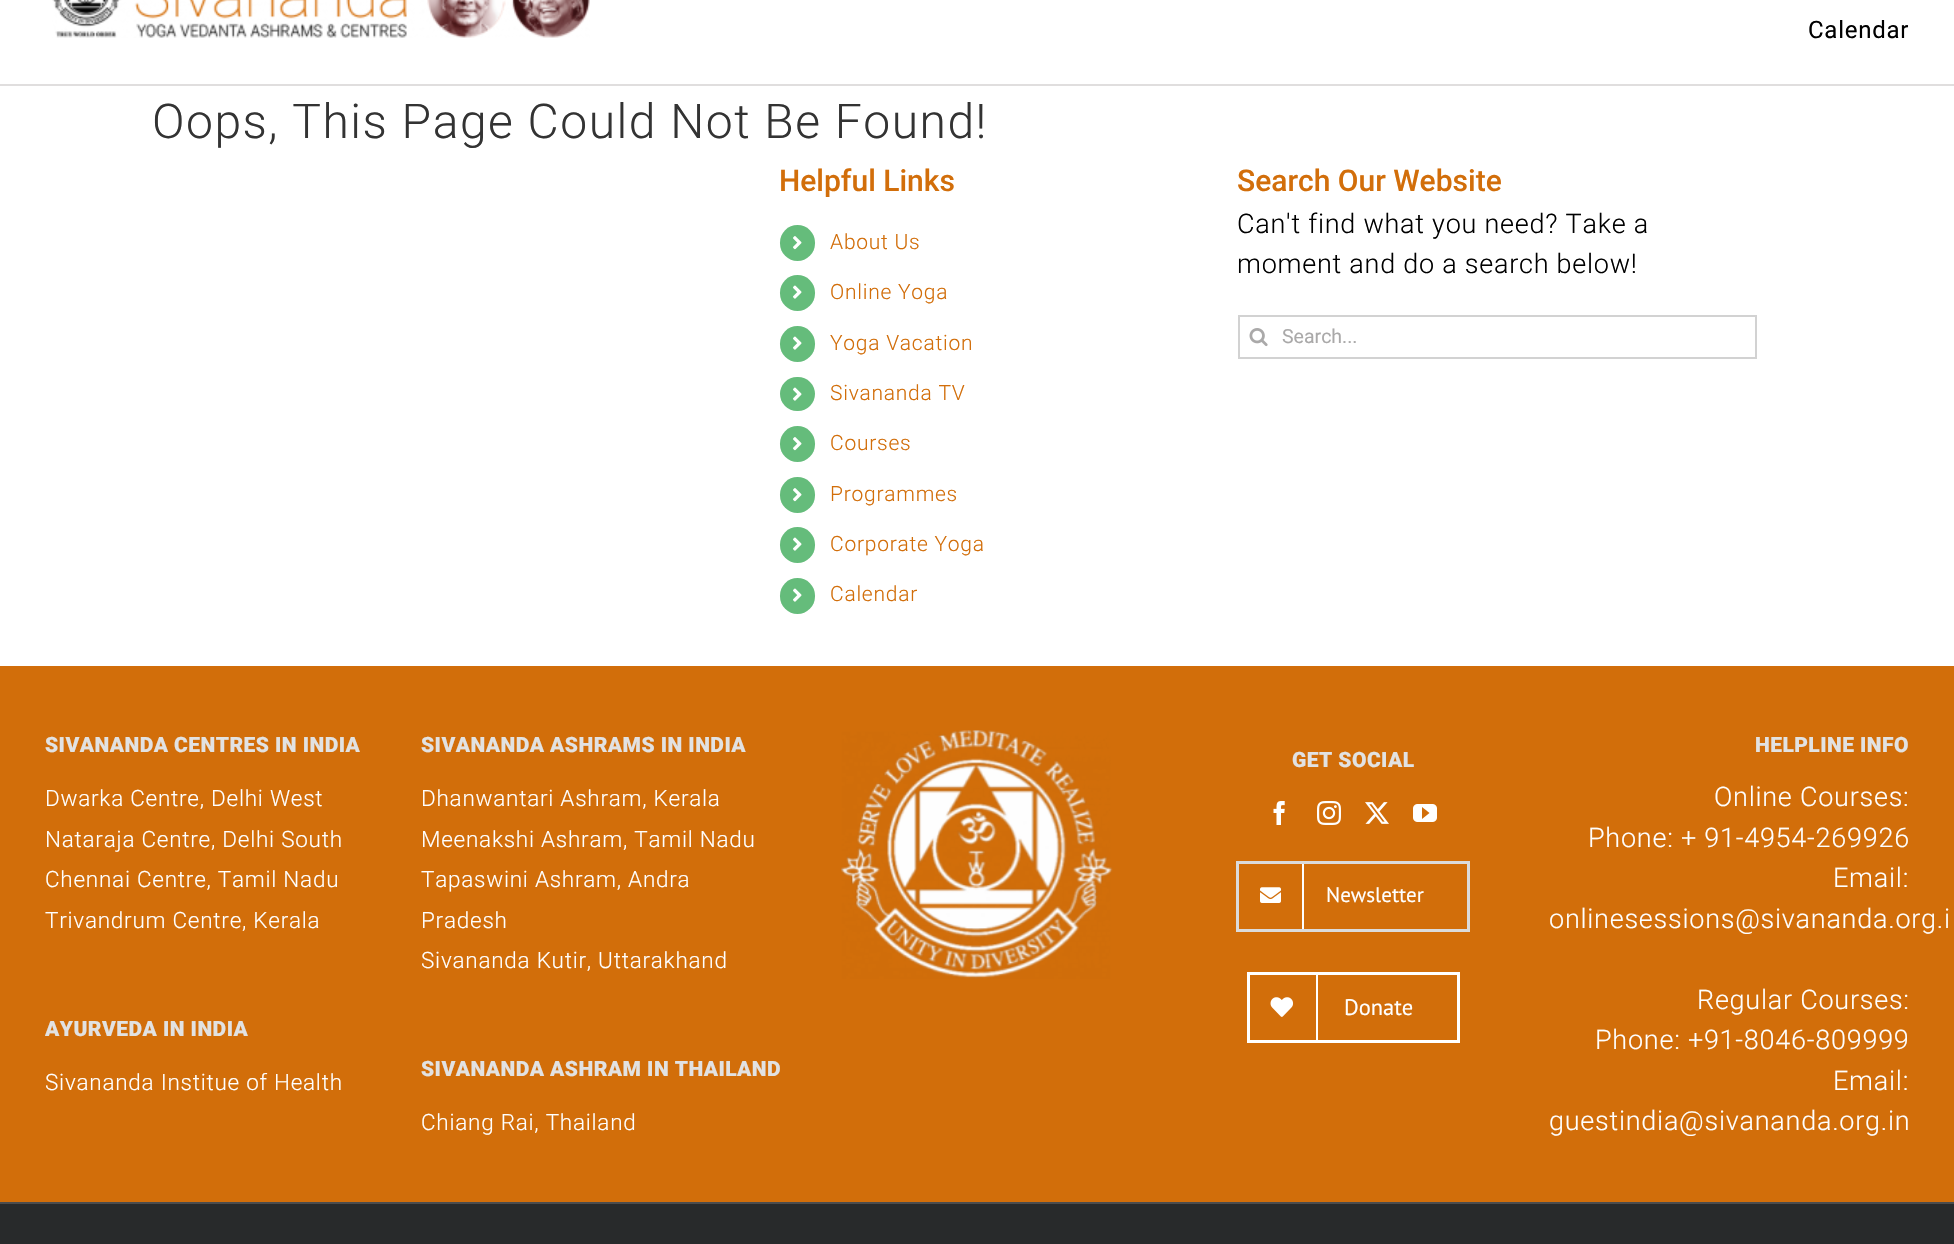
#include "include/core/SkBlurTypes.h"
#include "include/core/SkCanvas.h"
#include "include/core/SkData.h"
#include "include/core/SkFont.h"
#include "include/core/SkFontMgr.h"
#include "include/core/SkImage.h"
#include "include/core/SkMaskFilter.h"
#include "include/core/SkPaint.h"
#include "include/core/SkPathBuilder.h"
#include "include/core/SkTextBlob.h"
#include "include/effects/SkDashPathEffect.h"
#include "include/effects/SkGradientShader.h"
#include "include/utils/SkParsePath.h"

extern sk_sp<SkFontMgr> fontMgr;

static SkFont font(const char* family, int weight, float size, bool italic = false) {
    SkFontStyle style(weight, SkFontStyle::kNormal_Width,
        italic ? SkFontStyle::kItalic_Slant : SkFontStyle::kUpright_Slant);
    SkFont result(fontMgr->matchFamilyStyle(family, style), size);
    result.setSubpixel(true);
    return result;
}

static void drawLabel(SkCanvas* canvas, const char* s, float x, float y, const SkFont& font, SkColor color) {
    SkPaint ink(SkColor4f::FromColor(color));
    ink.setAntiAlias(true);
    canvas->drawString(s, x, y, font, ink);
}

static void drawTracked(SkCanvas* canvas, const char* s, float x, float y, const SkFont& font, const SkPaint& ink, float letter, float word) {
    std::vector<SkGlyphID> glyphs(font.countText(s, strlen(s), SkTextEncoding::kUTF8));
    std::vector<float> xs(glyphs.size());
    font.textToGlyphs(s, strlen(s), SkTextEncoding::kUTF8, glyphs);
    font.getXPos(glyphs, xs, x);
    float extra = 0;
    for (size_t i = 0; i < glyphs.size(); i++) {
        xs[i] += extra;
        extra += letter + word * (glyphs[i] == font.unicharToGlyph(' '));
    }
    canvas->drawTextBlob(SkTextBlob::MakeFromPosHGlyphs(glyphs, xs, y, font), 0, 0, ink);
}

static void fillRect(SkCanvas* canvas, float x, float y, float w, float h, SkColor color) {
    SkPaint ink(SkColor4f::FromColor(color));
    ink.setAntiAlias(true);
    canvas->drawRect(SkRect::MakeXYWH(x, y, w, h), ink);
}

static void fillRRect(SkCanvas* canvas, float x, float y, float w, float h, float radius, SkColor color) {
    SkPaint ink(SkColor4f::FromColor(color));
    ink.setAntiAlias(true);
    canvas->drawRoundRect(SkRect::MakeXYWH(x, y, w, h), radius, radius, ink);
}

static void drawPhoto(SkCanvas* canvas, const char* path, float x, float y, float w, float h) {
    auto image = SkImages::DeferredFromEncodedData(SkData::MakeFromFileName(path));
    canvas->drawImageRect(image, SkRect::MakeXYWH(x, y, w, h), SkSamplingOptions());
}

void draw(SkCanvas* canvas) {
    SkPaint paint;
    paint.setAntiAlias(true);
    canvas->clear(0xFFFFFFFF);
    fillRect(canvas, 0, 84, 1954, 2, 0xFFE0DEDE);
    drawPhoto(canvas, "assets/img1.png", 52, 0, 538, 38);
    SkFont font1 = font("Roboto", 400, 24);
    paint.setColor(0xFF000000);
    drawTracked(canvas, "Calendar", 1808, 38, font1, paint, 0.75f, 0);
    SkFont font2 = font("Roboto", 300, 48);
    paint.setColor(0xFF333333);
    drawTracked(canvas, "Oops, This Page Could Not Be Found!", 152, 138, font2, paint, 1.5f, 0);
    SkFont font3 = font("Roboto", 500, 30);
    drawLabel(canvas, "Helpful Links", 779, 191, font3, 0xFFD26E0A);
    fillRRect(canvas, 780, 225, 35, 36, 17.5f, 0xFF65BC7B);
    drawPhoto(canvas, "assets/img2.png", 793, 236, 9, 14);
    SkFont font4 = font("Roboto", 300, 21);
    paint.setColor(0xFFD26E0A);
    drawTracked(canvas, "About Us", 830, 249, font4, paint, 0.75f, 0);
    fillRRect(canvas, 780, 275, 35, 36, 17.5f, 0xFF65BC7B);
    drawPhoto(canvas, "assets/img3.png", 793, 285, 9, 14);
    drawTracked(canvas, "Online Yoga", 830, 299, font4, paint, 0.75f, 0);
    fillRRect(canvas, 780, 326, 35, 36, 17.5f, 0xFF65BC7B);
    drawPhoto(canvas, "assets/img3.png", 793, 336, 9, 14);
    drawTracked(canvas, "Yoga Vacation", 830, 350, font4, paint, 0.75f, 0);
    fillRRect(canvas, 780, 377, 35, 34, 17, 0xFF65BC7B);
    drawPhoto(canvas, "assets/img3.png", 793, 387, 9, 14);
    drawTracked(canvas, "Sivananda TV", 830, 400, font4, paint, 0.75f, 0);
    fillRRect(canvas, 780, 426, 35, 36, 17.5f, 0xFF65BC7B);
    drawPhoto(canvas, "assets/img2.png", 793, 437, 9, 14);
    drawTracked(canvas, "Courses", 830, 450, font4, paint, 0.75f, 0);
    fillRRect(canvas, 780, 477, 35, 36, 17.5f, 0xFF65BC7B);
    drawPhoto(canvas, "assets/img2.png", 793, 488, 9, 14);
    drawTracked(canvas, "Programmes", 830, 501, font4, paint, 0.75f, 0);
    fillRRect(canvas, 780, 527, 35, 36, 17.5f, 0xFF65BC7B);
    drawPhoto(canvas, "assets/img3.png", 793, 537, 9, 14);
    drawTracked(canvas, "Corporate Yoga", 830, 551, font4, paint, 0.75f, 0);
    fillRRect(canvas, 780, 578, 35, 36, 17.5f, 0xFF65BC7B);
    drawPhoto(canvas, "assets/img3.png", 793, 588, 9, 14);
    drawTracked(canvas, "Calendar", 830, 601, font4, paint, 0.75f, 0);
    drawLabel(canvas, "Search Our Website", 1237, 191, font3, 0xFFD26E0A);
    SkFont font5 = font("Roboto", 300, 27);
    paint.setColor(0xFF000000);
    drawTracked(canvas, "Can't find what you need? Take a", 1237, 233, font5, paint, 0.75f, 0);
    drawTracked(canvas, "moment and do a search below!", 1237, 273, font5, paint, 0.75f, 0);
    paint.setStroke(true);
    paint.setStrokeWidth(2);
    paint.setColor(0xFFD2D2D2);
    canvas->drawRect(SkRect::MakeXYWH(1239, 316, 517, 42), paint);
    drawPhoto(canvas, "assets/img4.png", 1249, 328, 19, 19);
    SkFont font6 = font("Roboto", 400, 19.5f);
    drawLabel(canvas, "Search...", 1282, 343, font6, 0xFFAAA9A9);
    fillRect(canvas, 0, 666, 1954, 536, 0xFFD26E0A);
    SkFont font7 = font("Roboto", 900, 21);
    paint.setStroke(false);
    paint.setColor(0xFFE2E2E2);
    drawTracked(canvas, "SIVANANDA CENTRES IN INDIA", 45, 752, font7, paint, 0.45f, 0);
    SkFont font8 = font("Roboto", 300, 22.5f);
    paint.setColor(0xFFFFFFFF);
    drawTracked(canvas, "Dwarka Centre, Delhi West", 45, 806, font8, paint, 0.75f, 0);
    drawTracked(canvas, "Nataraja Centre, Delhi South", 45, 847, font8, paint, 0.75f, 0);
    drawTracked(canvas, "Chennai Centre, Tamil Nadu", 45, 887, font8, paint, 0.75f, 0);
    drawTracked(canvas, "Trivandrum Centre, Kerala", 45, 928, font8, paint, 0.75f, 0);
    paint.setColor(0xFFE2E2E2);
    drawTracked(canvas, "AYURVEDA IN INDIA", 45, 1036, font7, paint, 0.45f, 0);
    paint.setColor(0xFFFFFFFF);
    drawTracked(canvas, "Sivananda Institue of Health", 45, 1090, font8, paint, 0.75f, 0);
    paint.setColor(0xFFE2E2E2);
    drawTracked(canvas, "SIVANANDA ASHRAMS IN INDIA", 421, 752, font7, paint, 0.45f, 0);
    paint.setColor(0xFFFFFFFF);
    drawTracked(canvas, "Dhanwantari Ashram, Kerala", 421, 806, font8, paint, 0.75f, 0);
    drawTracked(canvas, "Meenakshi Ashram, Tamil Nadu", 421, 847, font8, paint, 0.75f, 0);
    drawTracked(canvas, "Tapaswini Ashram, Andra", 421, 887, font8, paint, 0.75f, 0);
    drawTracked(canvas, "Pradesh", 421, 928, font8, paint, 0.75f, 0);
    drawTracked(canvas, "Sivananda Kutir, Uttarakhand", 421, 968, font8, paint, 0.75f, 0);
    paint.setColor(0xFFE2E2E2);
    drawTracked(canvas, "SIVANANDA ASHRAM IN THAILAND", 421, 1076, font7, paint, 0.45f, 0);
    paint.setColor(0xFFFFFFFF);
    drawTracked(canvas, "Chiang Rai, Thailand", 421, 1130, font8, paint, 0.75f, 0);
    drawPhoto(canvas, "assets/img5.png", 841, 730, 272, 249);
    paint.setColor(0xFFE2E2E2);
    drawTracked(canvas, "GET SOCIAL", 1292, 767, font7, paint, 0.45f, 0);
    drawPhoto(canvas, "assets/img6.png", 1273, 801, 12, 24);
    drawPhoto(canvas, "assets/img7.png", 1317, 801, 24, 24);
    drawPhoto(canvas, "assets/img8.png", 1365, 802, 24, 22);
    drawPhoto(canvas, "assets/img9.png", 1413, 804, 24, 18);
    paint.setStroke(true);
    paint.setStrokeWidth(3);
    paint.setColor(0xFFDBDBDB);
    canvas->drawRect(SkRect::MakeXYWH(1237.5f, 862.5f, 231, 68), paint);
    fillRect(canvas, 1302, 864, 2, 65, 0xFFFFFFFF);
    drawPhoto(canvas, "assets/img10.png", 1260, 887, 21, 16);
    SkFont font9 = font("PT Sans", 400, 21);
    drawLabel(canvas, "Newsletter", 1326, 902, font9, 0xFFFFFFFF);
    paint.setColor(0xFFFFFFFF);
    canvas->drawRect(SkRect::MakeXYWH(1248.5f, 973.5f, 210, 68), paint);
    fillRect(canvas, 1316, 975, 2, 65, 0xFFFFFFFF);
    drawPhoto(canvas, "assets/img11.png", 1270, 997, 24, 20);
    SkFont font10 = font("PT Sans", 400, 22.5f);
    drawLabel(canvas, "Donate", 1344, 1015, font10, 0xFFFFFFFF);
    paint.setStroke(false);
    paint.setColor(0xFFE2E2E2);
    drawTracked(canvas, "HELPLINE INFO", 1755, 752, font7, paint, 0.45f, 0);
    paint.setColor(0xFFFFFFFF);
    drawTracked(canvas, "Online Courses:", 1714, 806, font5, paint, 0.75f, 0);
    drawTracked(canvas, "Phone: + 91-4954-269926", 1588, 847, font5, paint, 0.75f, 0);
    drawTracked(canvas, "Email:", 1833, 887, font5, paint, 0.75f, 0);
    drawTracked(canvas, "onlinesessions@sivananda.org.i", 1549, 928, font5, paint, 0.75f, 0);
    drawTracked(canvas, "Regular Courses:", 1697, 1009, font5, paint, 0.75f, 0);
    drawTracked(canvas, "Phone: +91-8046-809999", 1595, 1049, font5, paint, 0.75f, 0);
    drawTracked(canvas, "Email:", 1833, 1090, font5, paint, 0.75f, 0);
    drawTracked(canvas, "guestindia@sivananda.org.in", 1549, 1130, font5, paint, 0.75f, 0);
    fillRect(canvas, 0, 1204, 1954, 40, 0xFF282A2B);
    fillRect(canvas, 0, 1202, 1954, 2, 0xFF4B4C4D);
}
